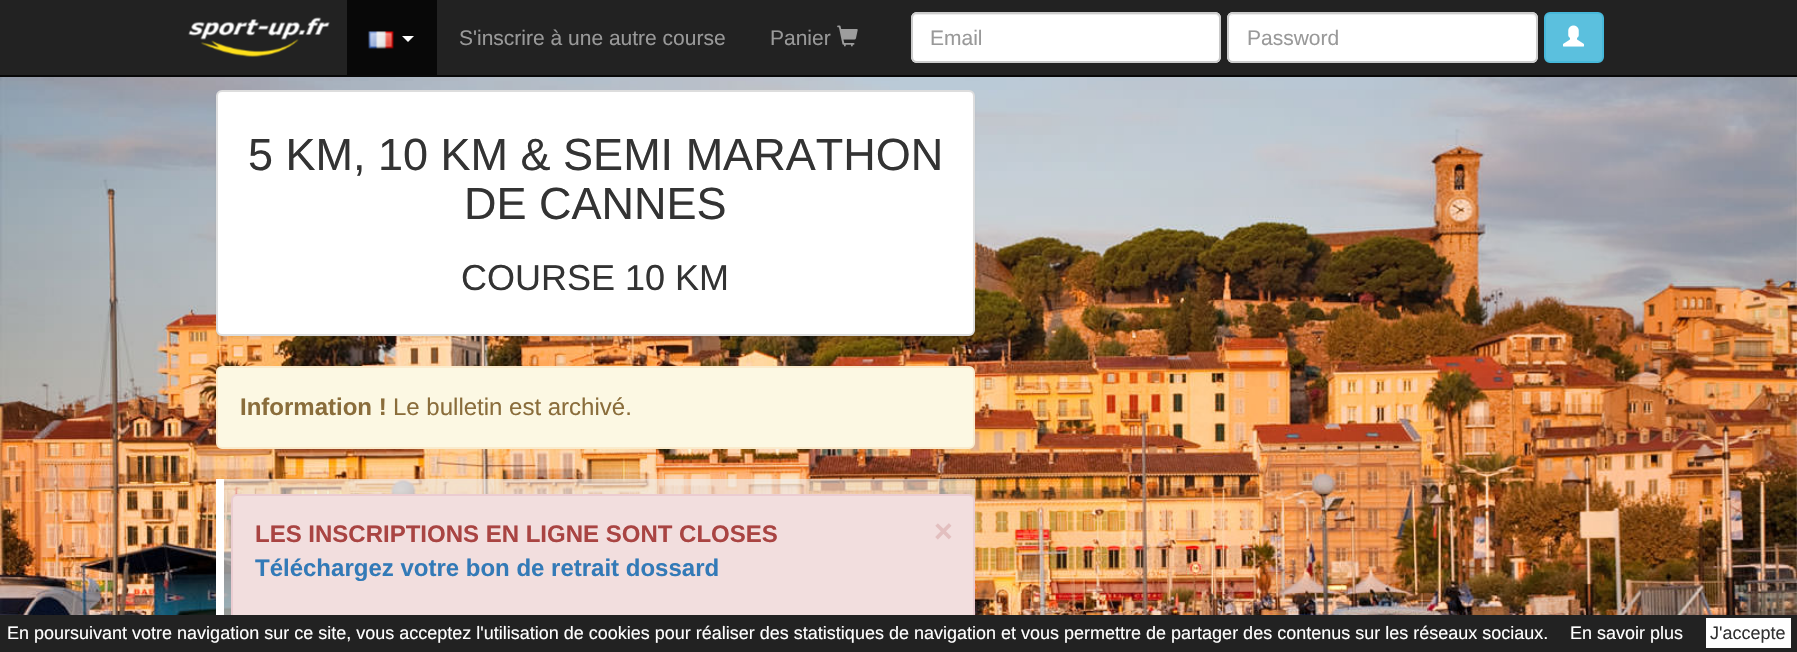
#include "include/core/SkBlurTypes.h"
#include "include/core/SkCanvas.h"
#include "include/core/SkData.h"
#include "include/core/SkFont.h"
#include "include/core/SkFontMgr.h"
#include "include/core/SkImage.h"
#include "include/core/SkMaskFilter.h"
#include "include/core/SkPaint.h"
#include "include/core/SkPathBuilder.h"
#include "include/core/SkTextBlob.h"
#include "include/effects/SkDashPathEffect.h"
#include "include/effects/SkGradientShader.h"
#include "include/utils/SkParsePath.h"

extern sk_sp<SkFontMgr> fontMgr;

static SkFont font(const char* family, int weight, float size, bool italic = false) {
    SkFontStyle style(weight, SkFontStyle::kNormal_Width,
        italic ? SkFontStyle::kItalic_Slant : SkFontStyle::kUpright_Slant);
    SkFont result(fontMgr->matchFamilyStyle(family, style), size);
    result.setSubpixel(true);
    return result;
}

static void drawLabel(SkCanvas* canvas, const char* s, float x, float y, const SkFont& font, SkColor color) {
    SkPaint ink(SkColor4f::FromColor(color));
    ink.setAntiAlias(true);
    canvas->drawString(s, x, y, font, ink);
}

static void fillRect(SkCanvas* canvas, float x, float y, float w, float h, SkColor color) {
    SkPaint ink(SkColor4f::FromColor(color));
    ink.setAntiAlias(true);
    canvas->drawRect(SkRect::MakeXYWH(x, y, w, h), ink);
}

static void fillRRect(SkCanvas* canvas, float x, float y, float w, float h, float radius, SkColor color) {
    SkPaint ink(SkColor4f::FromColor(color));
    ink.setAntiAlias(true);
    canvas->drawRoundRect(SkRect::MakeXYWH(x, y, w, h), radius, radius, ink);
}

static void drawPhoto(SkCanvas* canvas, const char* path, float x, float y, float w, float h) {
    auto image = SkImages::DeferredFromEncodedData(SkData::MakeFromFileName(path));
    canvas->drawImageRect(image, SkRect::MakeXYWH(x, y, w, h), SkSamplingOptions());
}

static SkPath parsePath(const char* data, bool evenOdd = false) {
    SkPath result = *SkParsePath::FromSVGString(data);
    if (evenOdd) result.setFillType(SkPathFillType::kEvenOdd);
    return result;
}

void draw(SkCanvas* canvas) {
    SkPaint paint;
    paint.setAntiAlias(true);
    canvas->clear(0xFFFFFFFF);
    fillRect(canvas, 0, 0, 1797, 75, 0xFF222222);
    fillRect(canvas, 0, 75, 1797, 2, 0xFF080808);
    drawPhoto(canvas, "assets/img1.png", 188, 17, 142, 40);
    fillRect(canvas, 347, 0, 90, 75, 0xFF080808);
    drawPhoto(canvas, "assets/img2.png", 368, 31, 26, 18);
    paint.setColor(0xFFFFFFFF);
    canvas->drawPath(parsePath("M402 36H414L408 42Z"), paint);
    SkFont font1 = font("Liberation Sans", 400, 21);
    drawLabel(canvas, "S'inscrire à une autre course", 459, 45, font1, 0xFF999999);
    drawLabel(canvas, "Panier", 770, 45, font1, 0xFF999999);
    drawPhoto(canvas, "assets/img3.png", 837, 25, 21, 22);
    fillRRect(canvas, 911, 12, 310, 51, 6, 0xFFFFFFFF);
    paint.setColor(0xFFECECEC);
    canvas->drawPath(parsePath("M916 15H1215C1217 15 1220 17 1220 20C1220 17 1218 14 1215 14H917C914 14 912 17 912 20C912 17 914 15 916 15Z"), paint);
    paint.setStroke(true);
    paint.setStrokeWidth(2);
    paint.setColor(0xFFCCCCCC);
    canvas->drawRoundRect(SkRect::MakeXYWH(912, 13, 308, 49), 5, 5, paint);
    drawLabel(canvas, "Email", 930, 45, font1, 0xFF999999);
    fillRRect(canvas, 1227, 12, 311, 51, 6, 0xFFFFFFFF);
    paint.setStroke(false);
    paint.setColor(0xFFECECEC);
    canvas->drawPath(parsePath("M1233 15H1532C1534 15 1536 17 1536 20V19C1536 16 1534 14 1531 14H1234C1232 14 1231 15 1230 16Z"), paint);
    paint.setStroke(true);
    paint.setColor(0xFFCCCCCC);
    canvas->drawRoundRect(SkRect::MakeXYWH(1228, 13, 309, 49), 5, 5, paint);
    drawLabel(canvas, "Password", 1247, 45, font1, 0xFF999999);
    paint.setStroke(false);
    paint.setColor(0xFF5BC0DE);
    canvas->drawRoundRect(SkRect::MakeXYWH(1545, 13, 58, 49), 5, 5, paint);
    paint.setStroke(true);
    paint.setColor(0xFF46B8DA);
    canvas->drawRoundRect(SkRect::MakeXYWH(1545, 13, 58, 49), 5, 5, paint);
    drawPhoto(canvas, "assets/img4.png", 1563, 25, 21, 22);
    drawPhoto(canvas, "assets/img5.png", 0, 77, 1797, 538);
    paint.setStroke(false);
    paint.setColor(0x0D000000);
    paint.setMaskFilter(SkMaskFilter::MakeBlur(kNormal_SkBlurStyle, 1));
    canvas->drawRoundRect(SkRect::MakeXYWH(216, 92, 759, 246), 6, 6, paint);
    paint.setMaskFilter(nullptr);
    paint.setColor(0xFFFFFFFF);
    canvas->drawRoundRect(SkRect::MakeXYWH(217, 91, 757, 244), 5, 5, paint);
    paint.setStroke(true);
    paint.setColor(0xFFDDDDDD);
    canvas->drawRoundRect(SkRect::MakeXYWH(217, 91, 757, 244), 5, 5, paint);
    SkFont font2 = font("Liberation Sans", 400, 45);
    drawLabel(canvas, "5 KM, 10 KM & SEMI MARATHON", 248, 170, font2, 0xFF333333);
    drawLabel(canvas, "DE CANNES", 464, 219, font2, 0xFF333333);
    SkFont font3 = font("Liberation Sans", 400, 36);
    drawLabel(canvas, "COURSE 10 KM", 461, 290, font3, 0xFF333333);
    paint.setStroke(false);
    paint.setColor(0xFFFCF8E3);
    canvas->drawRoundRect(SkRect::MakeXYWH(217, 367, 757, 81), 5, 5, paint);
    paint.setStroke(true);
    paint.setColor(0xFFFAEBCC);
    canvas->drawRoundRect(SkRect::MakeXYWH(217, 367, 757, 81), 5, 5, paint);
    SkFont font4 = font("Liberation Sans", 700, 24);
    drawLabel(canvas, "Information !", 240, 415, font4, 0xFF8A6D3B);
    SkFont font5 = font("Liberation Sans", 400, 24);
    drawLabel(canvas, "Le bulletin est archivé.", 393, 415, font5, 0xFF8A6D3B);
    fillRect(canvas, 224, 479, 751, 136, 0x99EDEDED);
    fillRect(canvas, 216, 479, 8, 136, 0xFFFFFFFF);
    paint.setStroke(false);
    paint.setColor(0xFFF2DEDE);
    canvas->drawRoundRect(SkRect::MakeXYWH(232, 495, 742, 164), 5, 5, paint);
    paint.setStroke(true);
    paint.setColor(0xFFEBCCD1);
    canvas->drawRoundRect(SkRect::MakeXYWH(232, 495, 742, 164), 5, 5, paint);
    drawLabel(canvas, "LES INSCRIPTIONS EN LIGNE SONT CLOSES", 255, 542, font4, 0xFFA94442);
    SkFont font6 = font("Liberation Sans", 700, 32);
    drawLabel(canvas, "×", 934, 542, font6, 0xFFE3BFBF);
    drawLabel(canvas, "Téléchargez votre bon de retrait dossard", 255, 576, font4, 0xFF337AB7);
    fillRect(canvas, 0, 615, 1797, 37, 0xFF222222);
    SkFont font7 = font("Liberation Sans", 400, 18);
    drawLabel(canvas, "En poursuivant votre navigation sur ce site, vous acceptez l'utilisation de cookies pour réaliser des statistiques de navigation et vous permettre de partager des contenus sur les réseaux sociaux.", 7, 639, font7, 0xFFFFFFFF);
    drawLabel(canvas, "En savoir plus", 1570, 639, font7, 0xFFFFFFFF);
    fillRect(canvas, 1706, 618, 85, 30, 0xFFFFFFFF);
    drawLabel(canvas, "J'accepte", 1710, 639, font7, 0xFF333333);
}
